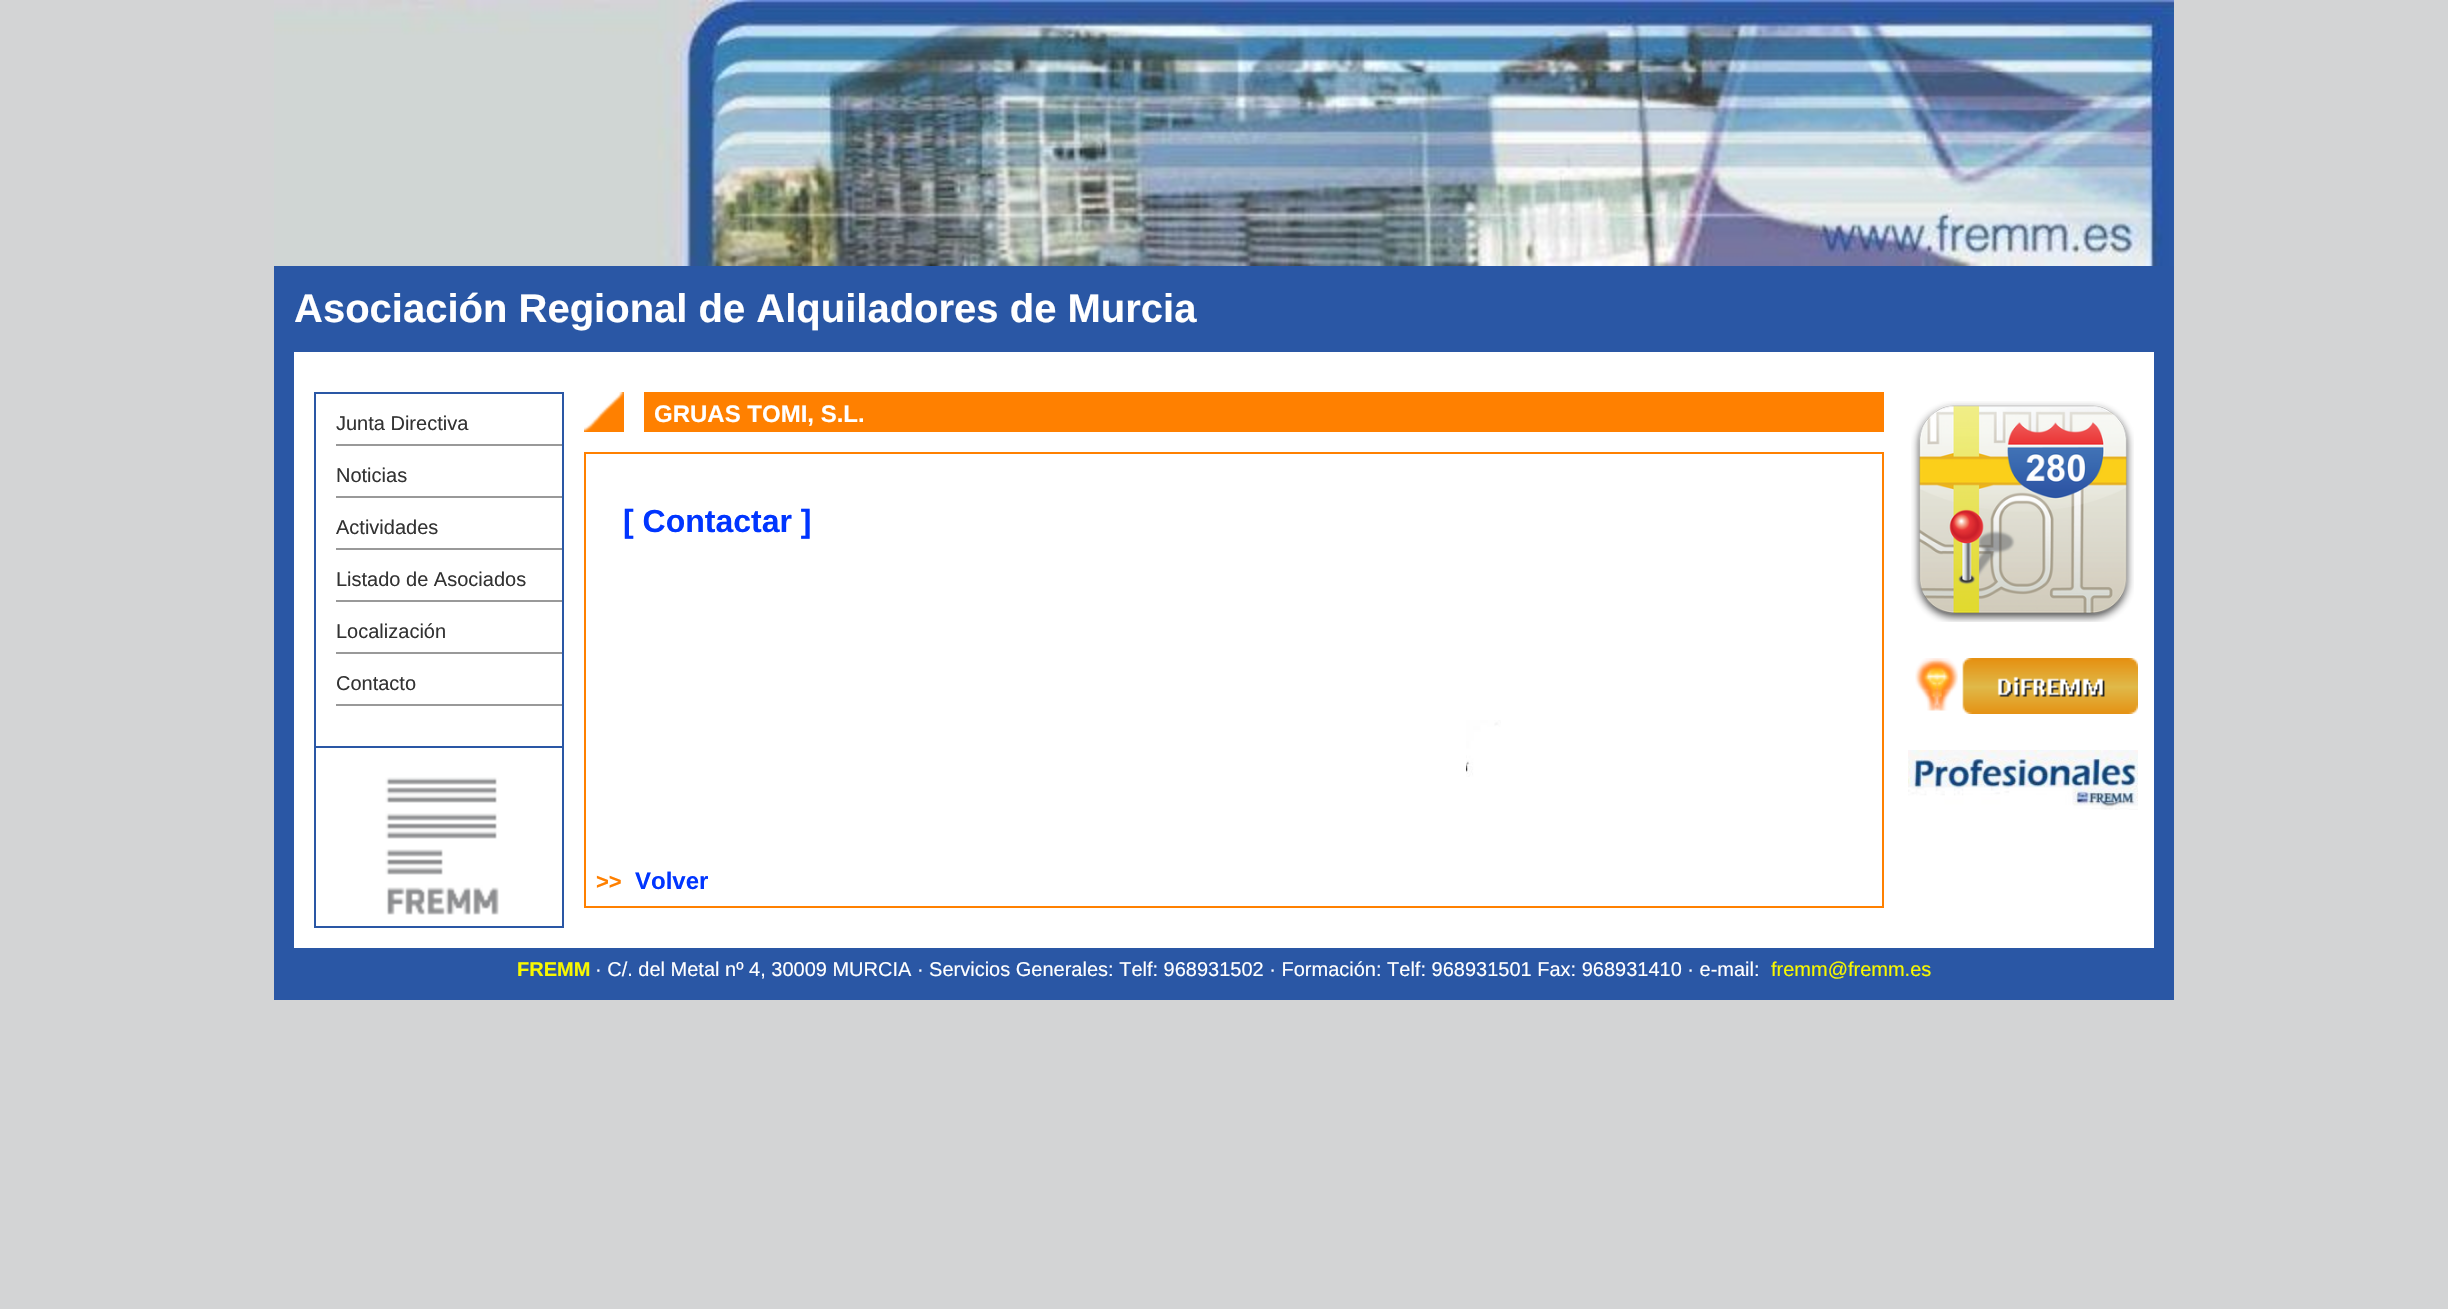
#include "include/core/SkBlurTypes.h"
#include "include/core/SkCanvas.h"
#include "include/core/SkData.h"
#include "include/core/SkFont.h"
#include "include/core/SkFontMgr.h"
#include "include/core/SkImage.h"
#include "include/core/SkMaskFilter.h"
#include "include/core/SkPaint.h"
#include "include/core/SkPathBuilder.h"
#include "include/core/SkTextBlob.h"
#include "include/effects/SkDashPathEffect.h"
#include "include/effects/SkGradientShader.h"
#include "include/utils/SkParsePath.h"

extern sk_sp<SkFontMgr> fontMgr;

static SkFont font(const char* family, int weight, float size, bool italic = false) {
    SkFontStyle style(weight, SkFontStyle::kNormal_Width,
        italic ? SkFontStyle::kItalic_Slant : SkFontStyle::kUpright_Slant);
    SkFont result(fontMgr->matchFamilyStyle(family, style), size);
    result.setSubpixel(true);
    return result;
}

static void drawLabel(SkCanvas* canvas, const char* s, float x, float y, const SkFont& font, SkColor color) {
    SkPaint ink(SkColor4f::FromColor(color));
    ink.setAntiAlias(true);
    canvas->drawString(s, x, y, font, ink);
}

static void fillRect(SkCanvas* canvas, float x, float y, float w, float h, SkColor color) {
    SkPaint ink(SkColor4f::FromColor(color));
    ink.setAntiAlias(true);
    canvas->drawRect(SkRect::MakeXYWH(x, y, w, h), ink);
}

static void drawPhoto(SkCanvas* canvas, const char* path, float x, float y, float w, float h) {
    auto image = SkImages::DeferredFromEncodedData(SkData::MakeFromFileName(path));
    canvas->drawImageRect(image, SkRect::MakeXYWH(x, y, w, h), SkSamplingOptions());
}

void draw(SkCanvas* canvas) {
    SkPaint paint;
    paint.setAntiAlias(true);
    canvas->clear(0xFFD3D4D5);
    drawPhoto(canvas, "assets/img1.png", 274, 0, 1900, 266);
    fillRect(canvas, 274, 266, 1900, 86, 0xFF2A57A5);
    SkFont font1 = font("Liberation Sans", 700, 40);
    drawLabel(canvas, "Asociación Regional de Alquiladores de Murcia", 294, 322, font1, 0xFFFFFFFF);
    fillRect(canvas, 294, 352, 1860, 596, 0xFFFFFFFF);
    fillRect(canvas, 274, 352, 20, 596, 0xFF2A57A5);
    paint.setStroke(true);
    paint.setStrokeWidth(2);
    paint.setColor(0xFF2A57A5);
    canvas->drawRect(SkRect::MakeXYWH(315, 393, 248, 534), paint);
    fillRect(canvas, 336, 444, 226, 2, 0xFF999999);
    SkFont font2 = font("Liberation Sans", 400, 20);
    drawLabel(canvas, "Junta Directiva", 336, 430, font2, 0xFF333333);
    fillRect(canvas, 336, 496, 226, 2, 0xFF999999);
    drawLabel(canvas, "Noticias", 336, 482, font2, 0xFF333333);
    fillRect(canvas, 336, 548, 226, 2, 0xFF999999);
    drawLabel(canvas, "Actividades", 336, 534, font2, 0xFF333333);
    fillRect(canvas, 336, 600, 226, 2, 0xFF999999);
    drawLabel(canvas, "Listado de Asociados", 336, 586, font2, 0xFF333333);
    fillRect(canvas, 336, 652, 226, 2, 0xFF999999);
    drawLabel(canvas, "Localización", 336, 638, font2, 0xFF333333);
    fillRect(canvas, 336, 704, 226, 2, 0xFF999999);
    drawLabel(canvas, "Contacto", 336, 690, font2, 0xFF333333);
    fillRect(canvas, 316, 746, 246, 2, 0xFF2A57A5);
    drawPhoto(canvas, "assets/img2.png", 385, 777, 114, 138);
    drawPhoto(canvas, "assets/img3.png", 584, 392, 40, 40);
    fillRect(canvas, 644, 392, 1240, 40, 0xFFFF8000);
    SkFont font3 = font("Liberation Sans", 700, 24);
    drawLabel(canvas, "GRUAS TOMI, S.L.", 654, 422, font3, 0xFFFFFFFF);
    paint.setColor(0xFFFF8000);
    canvas->drawRect(SkRect::MakeXYWH(585, 453, 1298, 454), paint);
    SkFont font4 = font("Liberation Sans", 700, 32);
    drawLabel(canvas, "[ Contactar ]", 623, 532, font4, 0xFF0035FF);
    drawPhoto(canvas, "assets/img4.png", 1466, 720, 35, 57);
    SkFont font5 = font("Liberation Sans", 700, 22);
    drawLabel(canvas, ">>", 596, 889, font5, 0xFFFF8000);
    drawLabel(canvas, "Volver", 635, 889, font3, 0xFF0035FF);
    drawPhoto(canvas, "assets/img5.png", 1911, 401, 223, 221);
    drawPhoto(canvas, "assets/img6.png", 1915, 658, 223, 56);
    drawPhoto(canvas, "assets/img7.png", 1908, 750, 230, 60);
    fillRect(canvas, 2154, 352, 20, 648, 0xFF2A57A5);
    fillRect(canvas, 274, 948, 1880, 52, 0xFF2A57A5);
    SkFont font6 = font("Liberation Sans", 700, 20);
    drawLabel(canvas, "FREMM", 517, 976, font6, 0xFFF7F700);
    drawLabel(canvas, "· C/. del Metal nº 4, 30009 MURCIA · Servicios Generales: Telf: 968931502 · Formación: Telf: 968931501 Fax: 968931410 · e-mail:", 595, 976, font2, 0xFFFFFFFF);
    drawLabel(canvas, "fremm@fremm.es", 1771, 976, font2, 0xFFF7F700);
}
